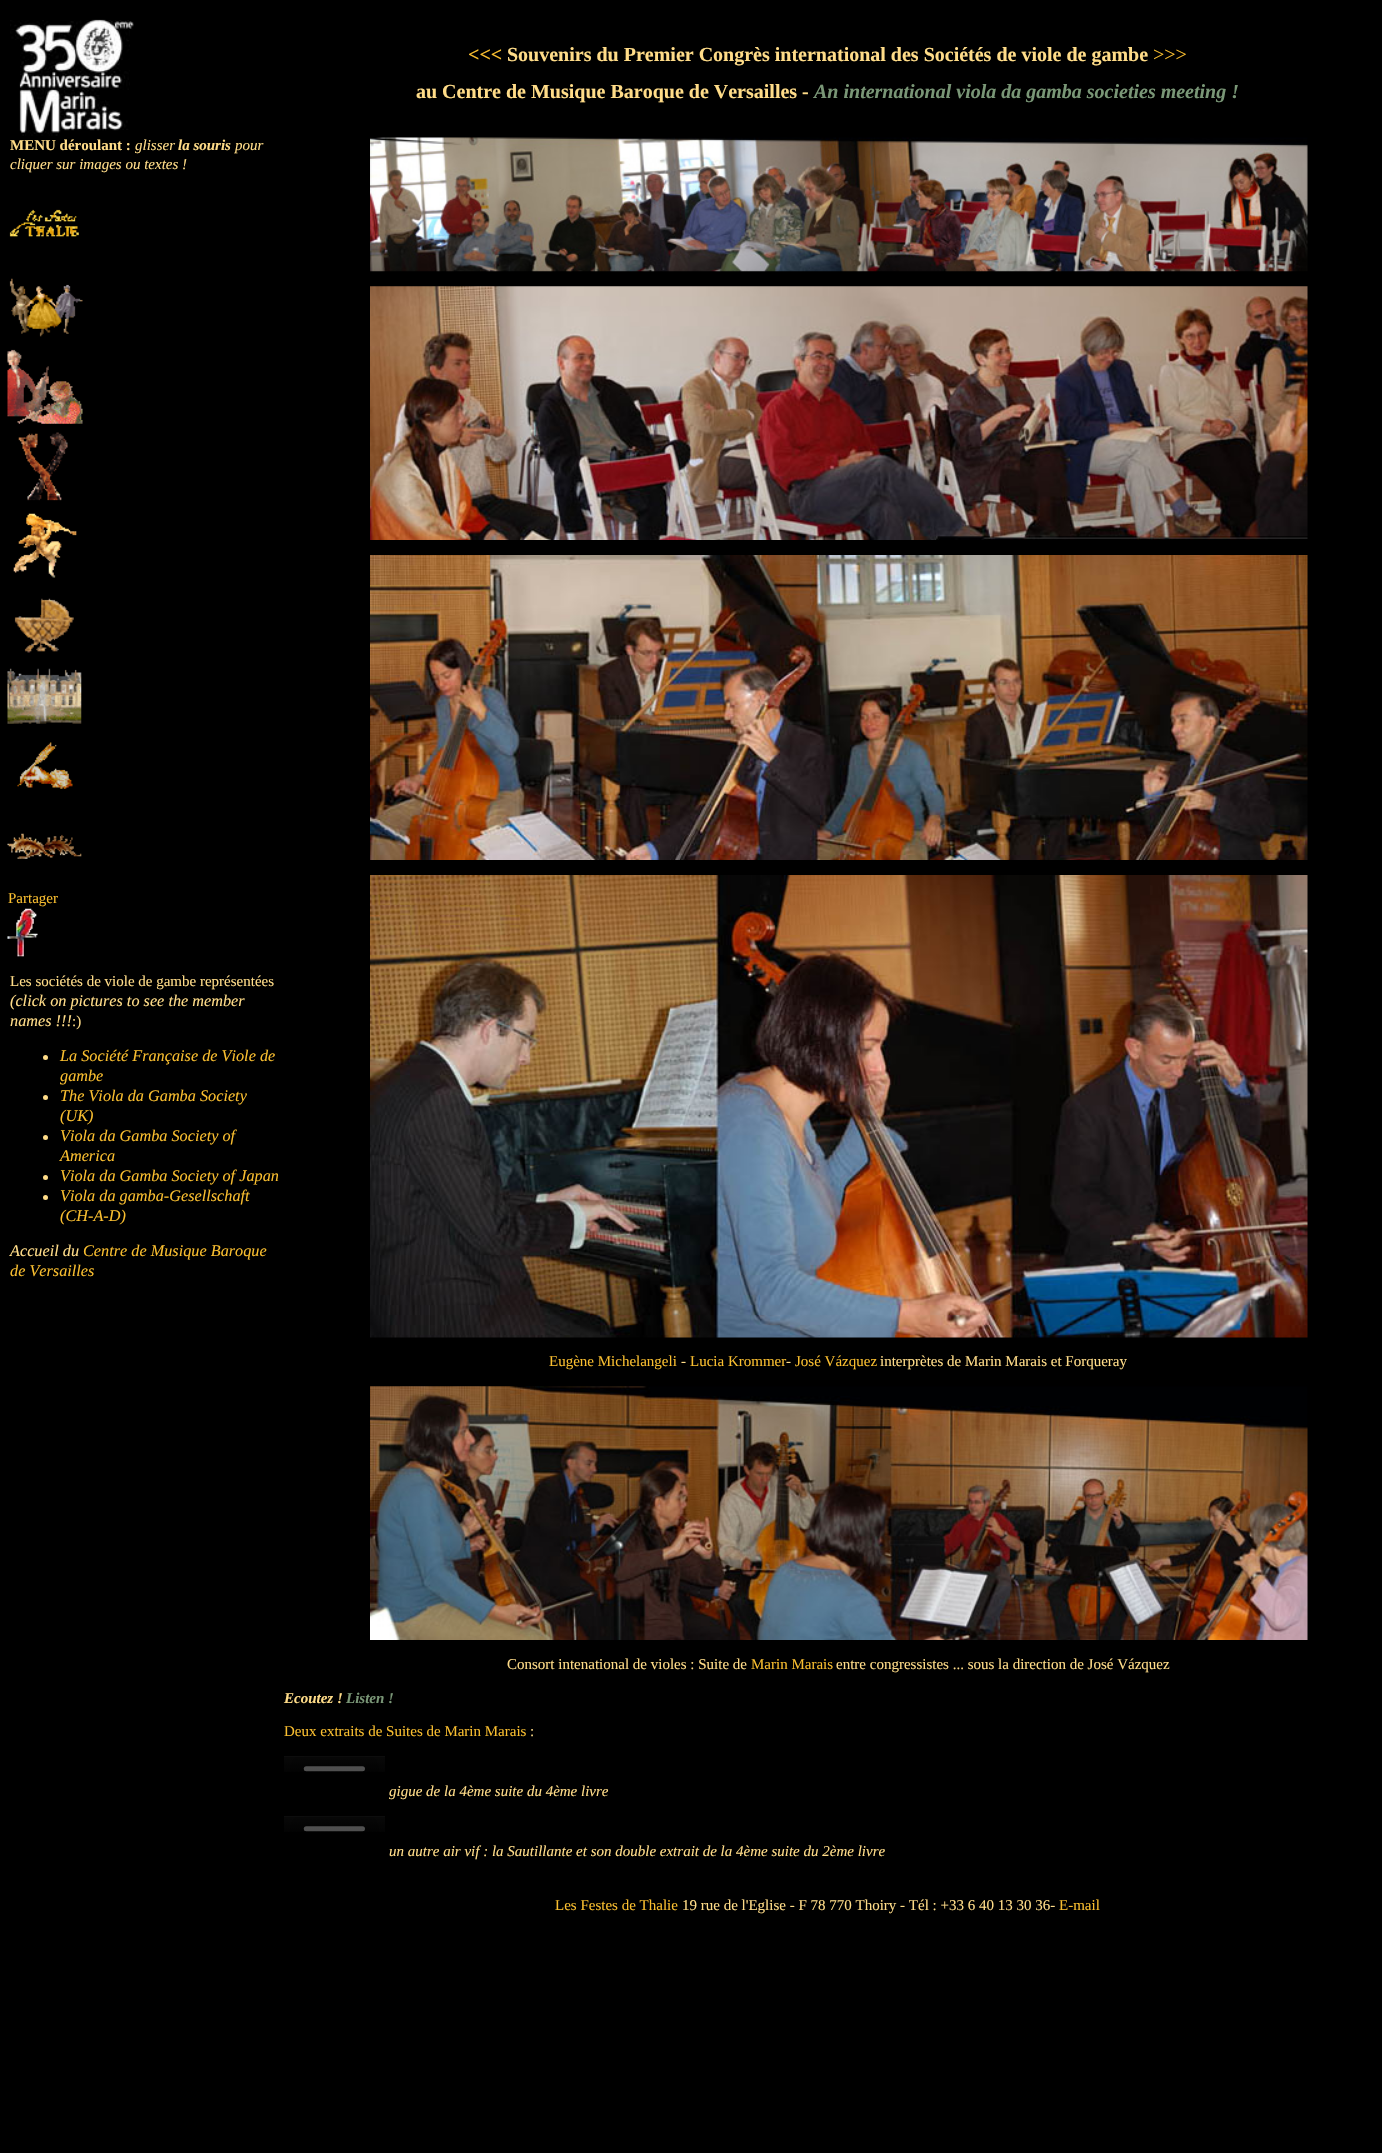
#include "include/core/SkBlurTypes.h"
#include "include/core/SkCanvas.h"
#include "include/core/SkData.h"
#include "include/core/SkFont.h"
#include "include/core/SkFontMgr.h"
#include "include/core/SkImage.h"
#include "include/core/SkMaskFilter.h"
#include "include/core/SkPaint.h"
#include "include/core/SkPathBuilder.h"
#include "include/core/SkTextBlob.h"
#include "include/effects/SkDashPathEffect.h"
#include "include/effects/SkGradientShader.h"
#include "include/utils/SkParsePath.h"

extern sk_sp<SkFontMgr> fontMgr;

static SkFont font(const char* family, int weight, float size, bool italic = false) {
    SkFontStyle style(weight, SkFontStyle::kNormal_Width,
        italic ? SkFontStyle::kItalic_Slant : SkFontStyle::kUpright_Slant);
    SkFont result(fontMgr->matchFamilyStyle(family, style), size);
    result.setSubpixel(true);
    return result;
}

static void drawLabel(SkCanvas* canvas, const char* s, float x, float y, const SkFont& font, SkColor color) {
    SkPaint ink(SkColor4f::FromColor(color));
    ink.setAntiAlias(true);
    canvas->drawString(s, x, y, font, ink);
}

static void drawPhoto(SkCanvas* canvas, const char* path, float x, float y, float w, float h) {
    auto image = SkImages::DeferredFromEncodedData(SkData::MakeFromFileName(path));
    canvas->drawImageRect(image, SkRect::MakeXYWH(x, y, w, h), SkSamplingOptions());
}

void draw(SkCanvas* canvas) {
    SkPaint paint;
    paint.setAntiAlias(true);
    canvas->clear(0xFF000000);
    drawPhoto(canvas, "assets/img1.png", 10, 19, 124, 117);
    SkFont font1 = font("Liberation Serif", 700, 20);
    drawLabel(canvas, "<<<", 468, 61, font1, 0xFFF9BE2F);
    drawLabel(canvas, "Souvenirs du Premier Congrès international des Sociétés de viole de gambe", 507, 61, font1, 0xFFFFDC88);
    SkFont font2 = font("Liberation Serif", 400, 20);
    drawLabel(canvas, ">>>", 1153, 61, font2, 0xFFF9BE2F);
    drawLabel(canvas, "au Centre de Musique Baroque de Versailles -", 416, 98, font1, 0xFFFFDC88);
    SkFont font3 = font("Liberation Serif", 700, 20, true);
    drawLabel(canvas, "An international viola da gamba societies meeting !", 814, 98, font3, 0xFF799676);
    SkFont font4 = font("Liberation Serif", 700, 15);
    drawLabel(canvas, "MENU déroulant :", 10, 150, font4, 0xFFFFDC88);
    SkFont font5 = font("Liberation Serif", 400, 15, true);
    drawLabel(canvas, "glisser", 135, 150, font5, 0xFFFFDC88);
    SkFont font6 = font("Liberation Serif", 700, 15, true);
    drawLabel(canvas, "la souris", 178, 150, font6, 0xFFFFDC88);
    drawLabel(canvas, "pour", 235, 150, font5, 0xFFFFDC88);
    drawLabel(canvas, "cliquer sur images ou textes !", 10, 169, font5, 0xFFFFDC88);
    drawPhoto(canvas, "assets/img2.png", 9, 209, 70, 28);
    drawPhoto(canvas, "assets/img3.png", 9, 278, 74, 59);
    drawPhoto(canvas, "assets/img4.png", 7, 349, 76, 75);
    drawPhoto(canvas, "assets/img5.png", 18, 432, 50, 69);
    drawPhoto(canvas, "assets/img6.png", 13, 513, 64, 65);
    drawPhoto(canvas, "assets/img7.png", 14, 598, 60, 55);
    drawPhoto(canvas, "assets/img8.png", 7, 668, 75, 56);
    drawPhoto(canvas, "assets/img9.png", 17, 742, 56, 47);
    drawPhoto(canvas, "assets/img10.png", 7, 833, 75, 26);
    SkFont font7 = font("Liberation Serif", 400, 15);
    drawLabel(canvas, "Partager", 8, 903, font7, 0xFFF9BE2F);
    drawPhoto(canvas, "assets/img11.png", 7, 908, 31, 49);
    drawLabel(canvas, "Les sociétés de viole de gambe représentées", 10, 986, font7, 0xFFFFDC88);
    SkFont font8 = font("Liberation Serif", 400, 16.25f, true);
    drawLabel(canvas, "(click on pictures to see the member", 10, 1006, font8, 0xFFFFDC88);
    drawLabel(canvas, "names !!!", 10, 1026, font8, 0xFFFFDC88);
    drawLabel(canvas, ":)", 72, 1026, font7, 0xFFFFDC88);
    paint.setColor(0xFFFFDC88);
    canvas->drawCircle(45.5f, 1057.5f, 2.5f, paint);
    drawLabel(canvas, "La Société Française de Viole de", 60, 1061, font8, 0xFFF9BE2F);
    drawLabel(canvas, "gambe", 60, 1081, font8, 0xFFF9BE2F);
    canvas->drawCircle(45.5f, 1097.5f, 2.5f, paint);
    drawLabel(canvas, "The Viola da Gamba Society", 60, 1101, font8, 0xFFF9BE2F);
    drawLabel(canvas, "(UK)", 60, 1121, font8, 0xFFF9BE2F);
    canvas->drawCircle(45.5f, 1137.5f, 2.5f, paint);
    drawLabel(canvas, "Viola da Gamba Society of", 60, 1141, font8, 0xFFF9BE2F);
    drawLabel(canvas, "America", 60, 1161, font8, 0xFFF9BE2F);
    canvas->drawCircle(45.5f, 1177.5f, 2.5f, paint);
    drawLabel(canvas, "Viola da Gamba Society of Japan", 60, 1181, font8, 0xFFF9BE2F);
    canvas->drawCircle(45.5f, 1197.5f, 2.5f, paint);
    drawLabel(canvas, "Viola da gamba-Gesellschaft", 60, 1201, font8, 0xFFF9BE2F);
    drawLabel(canvas, "(CH-A-D)", 60, 1221, font8, 0xFFF9BE2F);
    drawLabel(canvas, "Accueil du", 10, 1256, font8, 0xFFFFDC88);
    drawLabel(canvas, "Centre de Musique Baroque", 83, 1256, font8, 0xFFF9BE2F);
    drawLabel(canvas, "de Versailles", 10, 1276, font8, 0xFFF9BE2F);
    drawPhoto(canvas, "assets/img12.png", 370, 137, 938, 135);
    drawPhoto(canvas, "assets/img13.png", 370, 286, 938, 254);
    drawPhoto(canvas, "assets/img14.png", 370, 555, 938, 305);
    drawPhoto(canvas, "assets/img15.png", 370, 875, 938, 463);
    drawLabel(canvas, "Eugène Michelangeli", 549, 1366, font7, 0xFFF9BE2F);
    drawLabel(canvas, "-", 681, 1366, font7, 0xFFFFDC88);
    drawLabel(canvas, "Lucia Krommer", 690, 1366, font7, 0xFFF9BE2F);
    drawLabel(canvas, "-", 786, 1366, font7, 0xFFFFDC88);
    drawLabel(canvas, "José Vázquez", 795, 1366, font7, 0xFFF9BE2F);
    drawLabel(canvas, "interprètes de Marin Marais et Forqueray", 880, 1366, font7, 0xFFFFDC88);
    drawPhoto(canvas, "assets/img16.png", 370, 1386, 938, 254);
    drawLabel(canvas, "Consort intenational de violes : Suite de", 507, 1669, font7, 0xFFFFDC88);
    drawLabel(canvas, "Marin Marais", 751, 1669, font7, 0xFFF9BE2F);
    drawLabel(canvas, "entre congressistes ... sous la direction de José Vázquez", 836, 1669, font7, 0xFFFFDC88);
    drawLabel(canvas, "Ecoutez !", 284, 1703, font6, 0xFFFFDC88);
    drawLabel(canvas, "Listen !", 346, 1703, font6, 0xFF799676);
    drawLabel(canvas, "Deux extraits de Suites de Marin Marais", 284, 1736, font7, 0xFFF9BE2F);
    drawLabel(canvas, ":", 530, 1736, font7, 0xFFFFDC88);
    drawPhoto(canvas, "assets/img17.png", 284, 1756, 101, 16);
    drawLabel(canvas, "gigue de la 4ème suite du 4ème livre", 389, 1796, font5, 0xFFFFDC88);
    drawPhoto(canvas, "assets/img18.png", 284, 1816, 101, 16);
    drawLabel(canvas, "un autre air vif : la Sautillante et son double extrait de la 4ème suite du 2ème livre", 389, 1856, font5, 0xFFFFDC88);
    drawLabel(canvas, "Les Festes de Thalie", 555, 1910, font7, 0xFFF9BE2F);
    drawLabel(canvas, "19 rue de l'Eglise - F 78 770 Thoiry - Tél : +33 6 40 13 30 36-", 682, 1910, font7, 0xFFFFDC88);
    drawLabel(canvas, "E-mail", 1059, 1910, font7, 0xFFF9BE2F);
}
